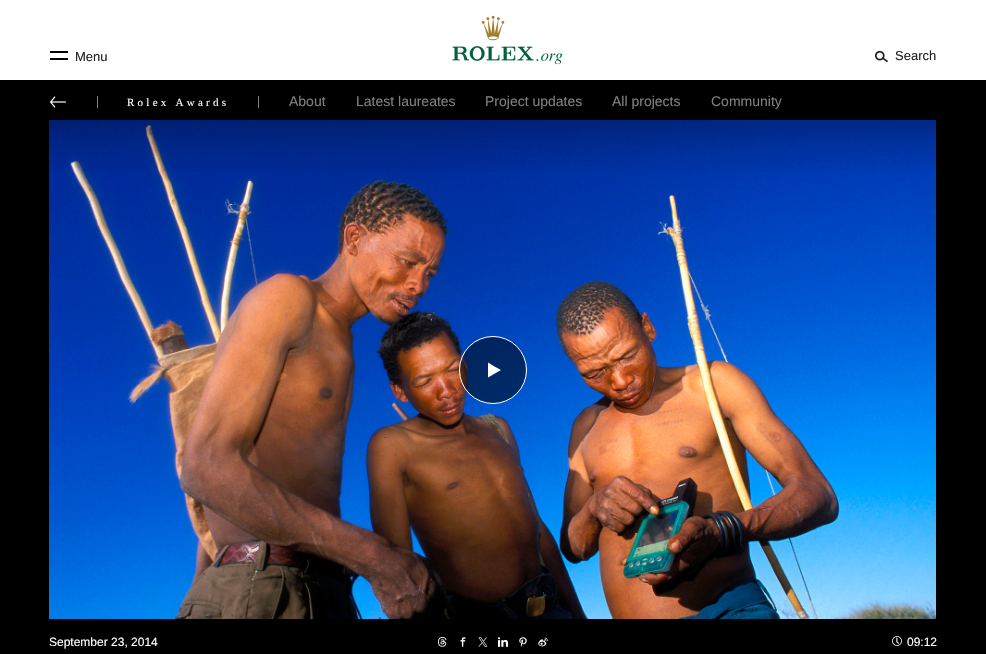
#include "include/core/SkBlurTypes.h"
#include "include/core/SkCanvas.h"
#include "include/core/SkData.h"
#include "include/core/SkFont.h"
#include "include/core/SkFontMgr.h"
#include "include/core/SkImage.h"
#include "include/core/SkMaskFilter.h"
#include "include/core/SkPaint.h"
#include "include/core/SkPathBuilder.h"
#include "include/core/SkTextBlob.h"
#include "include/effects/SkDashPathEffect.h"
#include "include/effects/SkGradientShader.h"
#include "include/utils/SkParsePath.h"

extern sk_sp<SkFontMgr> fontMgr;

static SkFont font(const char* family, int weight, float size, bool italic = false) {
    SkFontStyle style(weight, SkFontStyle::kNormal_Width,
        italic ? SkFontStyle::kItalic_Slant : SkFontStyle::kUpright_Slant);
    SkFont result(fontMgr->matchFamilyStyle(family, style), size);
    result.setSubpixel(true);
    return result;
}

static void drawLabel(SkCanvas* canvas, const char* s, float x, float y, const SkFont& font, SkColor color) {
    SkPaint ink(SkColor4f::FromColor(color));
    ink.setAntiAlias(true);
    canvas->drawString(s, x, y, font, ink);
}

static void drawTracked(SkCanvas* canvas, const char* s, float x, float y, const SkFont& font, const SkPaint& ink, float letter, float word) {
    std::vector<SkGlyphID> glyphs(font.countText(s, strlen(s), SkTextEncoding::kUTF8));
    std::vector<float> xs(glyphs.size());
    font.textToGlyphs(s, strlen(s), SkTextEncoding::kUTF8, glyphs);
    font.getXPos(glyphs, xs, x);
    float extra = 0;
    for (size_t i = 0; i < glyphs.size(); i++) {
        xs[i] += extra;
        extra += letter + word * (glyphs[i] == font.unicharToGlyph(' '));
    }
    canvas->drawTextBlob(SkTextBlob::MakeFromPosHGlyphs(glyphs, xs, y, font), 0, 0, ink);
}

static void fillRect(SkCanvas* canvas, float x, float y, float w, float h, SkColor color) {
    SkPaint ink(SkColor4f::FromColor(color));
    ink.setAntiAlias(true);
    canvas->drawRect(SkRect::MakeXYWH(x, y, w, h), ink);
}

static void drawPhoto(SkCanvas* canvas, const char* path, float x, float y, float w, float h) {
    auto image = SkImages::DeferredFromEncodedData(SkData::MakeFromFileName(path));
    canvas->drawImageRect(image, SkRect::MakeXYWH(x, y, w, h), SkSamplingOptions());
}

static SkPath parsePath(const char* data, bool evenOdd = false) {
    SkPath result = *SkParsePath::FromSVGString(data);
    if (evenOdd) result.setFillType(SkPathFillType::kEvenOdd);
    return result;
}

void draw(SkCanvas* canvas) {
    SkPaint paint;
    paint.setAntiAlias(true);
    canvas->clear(0xFF000000);
    fillRect(canvas, 0, 0, 986, 80, 0xFFFFFFFF);
    fillRect(canvas, 50, 51, 18, 2, 0xFF000000);
    fillRect(canvas, 50, 58, 18, 2, 0xFF000000);
    SkFont font1 = font("Liberation Sans", 400, 13);
    drawLabel(canvas, "Menu", 75, 61, font1, 0xFF212121);
    drawPhoto(canvas, "assets/img1.png", 452, 15, 111, 50);
    drawPhoto(canvas, "assets/img2.png", 874, 50, 14, 13);
    drawLabel(canvas, "Search", 895, 60, font1, 0xFF212121);
    drawPhoto(canvas, "assets/img3.png", 50, 96, 16, 12);
    fillRect(canvas, 97, 96, 1, 12, 0xFF808080);
    SkFont font2 = font("Liberation Serif", 400, 11);
    paint.setColor(0xFFFFFFFF);
    drawTracked(canvas, "Rolex Awards", 127, 106, font2, paint, 3.25f, 0);
    fillRect(canvas, 258, 96, 1, 12, 0xFF808080);
    SkFont font3 = font("Liberation Sans", 400, 14);
    drawLabel(canvas, "About", 289, 106, font3, 0xFF808080);
    drawLabel(canvas, "Latest laureates", 356, 106, font3, 0xFF808080);
    drawLabel(canvas, "Project updates", 485, 106, font3, 0xFF808080);
    drawLabel(canvas, "All projects", 612, 106, font3, 0xFF808080);
    drawLabel(canvas, "Community", 711, 106, font3, 0xFF808080);
    drawPhoto(canvas, "assets/img4.png", 49, 120, 887, 499);
    {
        const SkColor colors[] = {0x99000000, 0x4D000000, 0x1A000000, 0x0D000000, 0x00000000};
        const float stops[] = {0, 0.6f, 0.8f, 0.9f, 1};
        const SkPoint ends[] = {{493, 0}, {493, 180}};
        paint.setShader(SkGradientShader::MakeLinear(ends, colors, stops, 5, SkTileMode::kClamp));
        paint.setAlpha(255);
    }
    canvas->drawRect(SkRect::MakeXYWH(49, 120, 887, 52), paint);
    paint.setShader(nullptr);
    paint.setColor(0x80000000);
    canvas->drawCircle(493, 370, 33.5f, paint);
    paint.setStroke(true);
    paint.setStrokeWidth(1);
    paint.setColor(0xFFFFFFFF);
    canvas->drawCircle(493, 370, 33.5f, paint);
    paint.setStroke(false);
    canvas->drawPath(parsePath("M501 370L488 377.5V362.5L494.5 366.5Z"), paint);
    SkFont font4 = font("Liberation Sans", 400, 12);
    drawLabel(canvas, "September 23, 2014", 49, 646, font4, 0xFFFFFFFF);
    drawPhoto(canvas, "assets/img5.png", 438, 637, 9, 10);
    drawPhoto(canvas, "assets/img6.png", 460, 637, 6, 10);
    drawPhoto(canvas, "assets/img7.png", 478, 637, 10, 10);
    drawPhoto(canvas, "assets/img8.png", 498, 637, 10, 10);
    drawPhoto(canvas, "assets/img9.png", 519, 637, 8, 10);
    drawPhoto(canvas, "assets/img10.png", 538, 637, 10, 10);
    drawPhoto(canvas, "assets/img11.png", 892, 636, 10, 10);
    drawLabel(canvas, "09:12", 907, 646, font4, 0xFFFFFFFF);
}
